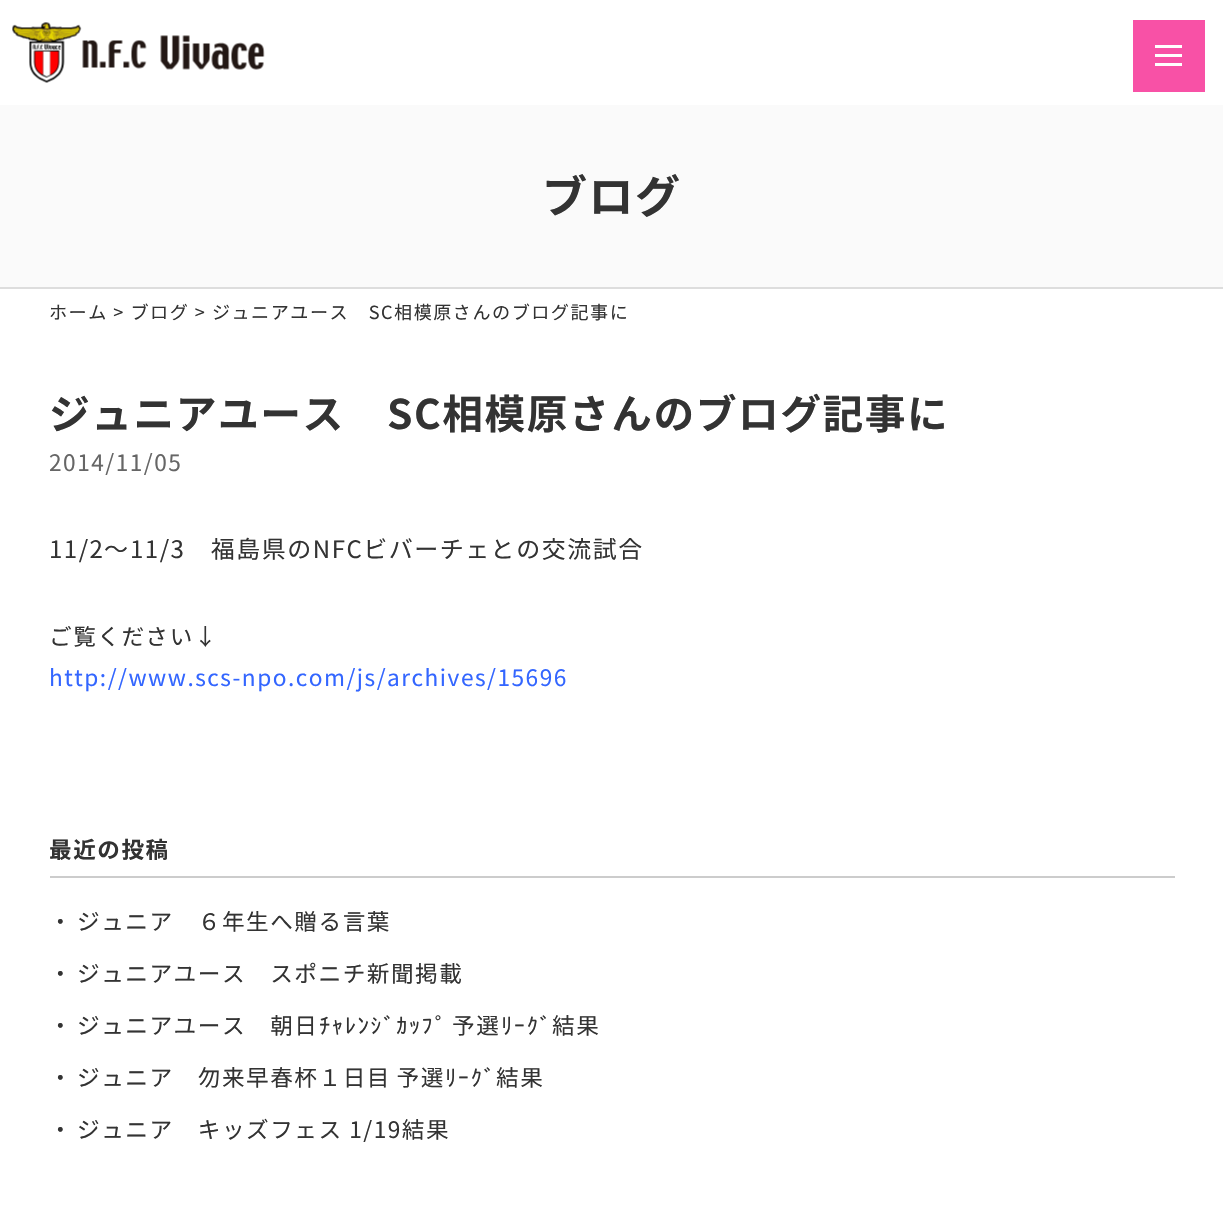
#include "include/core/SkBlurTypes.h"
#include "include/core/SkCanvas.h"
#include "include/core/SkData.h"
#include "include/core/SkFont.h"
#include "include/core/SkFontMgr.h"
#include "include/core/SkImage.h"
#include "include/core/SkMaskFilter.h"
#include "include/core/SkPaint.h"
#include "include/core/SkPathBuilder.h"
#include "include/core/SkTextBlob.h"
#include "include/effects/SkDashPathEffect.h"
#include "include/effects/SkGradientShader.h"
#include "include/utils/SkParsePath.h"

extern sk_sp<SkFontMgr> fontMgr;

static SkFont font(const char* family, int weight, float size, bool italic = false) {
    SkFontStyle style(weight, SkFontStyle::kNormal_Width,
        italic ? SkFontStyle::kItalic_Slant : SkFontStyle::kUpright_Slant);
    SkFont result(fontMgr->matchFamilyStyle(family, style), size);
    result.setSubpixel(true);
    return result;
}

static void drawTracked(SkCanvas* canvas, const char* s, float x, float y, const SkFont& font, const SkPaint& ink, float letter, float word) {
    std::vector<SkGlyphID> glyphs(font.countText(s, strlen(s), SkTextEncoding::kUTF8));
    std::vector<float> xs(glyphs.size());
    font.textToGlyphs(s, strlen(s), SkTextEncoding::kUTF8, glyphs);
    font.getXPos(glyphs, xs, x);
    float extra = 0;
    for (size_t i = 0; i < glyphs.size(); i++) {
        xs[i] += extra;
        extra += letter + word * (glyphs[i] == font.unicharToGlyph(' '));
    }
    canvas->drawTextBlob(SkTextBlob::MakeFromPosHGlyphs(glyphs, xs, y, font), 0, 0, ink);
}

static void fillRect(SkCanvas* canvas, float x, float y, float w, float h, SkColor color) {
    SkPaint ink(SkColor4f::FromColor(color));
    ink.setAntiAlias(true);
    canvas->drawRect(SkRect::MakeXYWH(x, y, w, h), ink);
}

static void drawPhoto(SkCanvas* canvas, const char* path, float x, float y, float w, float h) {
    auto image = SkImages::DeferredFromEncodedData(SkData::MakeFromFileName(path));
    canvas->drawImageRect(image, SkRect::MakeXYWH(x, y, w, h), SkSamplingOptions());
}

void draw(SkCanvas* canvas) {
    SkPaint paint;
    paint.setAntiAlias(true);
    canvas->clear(0xFFFFFFFF);
    drawPhoto(canvas, "assets/img1.png", 12, 22, 253, 61);
    fillRect(canvas, 1133, 20, 72, 72, 0xFFF851A6);
    fillRect(canvas, 1155, 54, 27, 3, 0xFFFFFFFF);
    fillRect(canvas, 1155, 45, 27, 3, 0xFFFFFFFF);
    fillRect(canvas, 1155, 63, 27, 3, 0xFFFFFFFF);
    fillRect(canvas, 0, 105, 1223, 182, 0xFFFAFAFA);
    fillRect(canvas, 0, 287, 1223, 2, 0xFFDDDDDD);
    SkFont font1 = font("Noto Sans JP", 700, 45);
    paint.setColor(0xFF333333);
    drawTracked(canvas, "ブログ", 542, 213, font1, paint, 1.5f, 0);
    SkFont font2 = font("Noto Sans JP", 400, 18.1f);
    drawTracked(canvas, "ホーム > ブログ > ジュニアユース　SC相模原さんのブログ記事に", 49, 319, font2, paint, 1.5f, 0);
    SkFont font3 = font("Noto Sans JP", 700, 40.75f);
    drawTracked(canvas, "ジュニアユース　SC相模原さんのブログ記事に", 49, 429, font3, paint, 1.5f, 0);
    SkFont font4 = font("Noto Sans JP", 400, 22.65f);
    paint.setColor(0xFF666666);
    drawTracked(canvas, "2014/11/05", 49, 471, font4, paint, 1.5f, 0);
    SkFont font5 = font("Noto Sans JP", 400, 24);
    paint.setColor(0xFF333333);
    drawTracked(canvas, "11/2", 49, 558, font5, paint, 1.5f, 0);
    SkFont font6 = font("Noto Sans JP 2", 400, 24);
    drawTracked(canvas, "～", 104, 558, font6, paint, 1.5f, 0);
    drawTracked(canvas, "11/3　福島県のNFCビバーチェとの交流試合", 130, 558, font5, paint, 1.5f, 0);
    drawTracked(canvas, "ご覧ください", 49, 645, font4, paint, 1.5f, 0);
    SkFont font7 = font("Noto Sans JP 2", 400, 22.65f);
    drawTracked(canvas, "↓", 194, 645, font7, paint, 1.5f, 0);
    paint.setColor(0xFF3366FF);
    drawTracked(canvas, "http://www.scs-npo.com/js/archives/15696", 49, 686, font4, paint, 1.5f, 0);
    fillRect(canvas, 50, 876, 1125, 2, 0xFFCCCCCC);
    SkFont font8 = font("Noto Sans JP", 700, 22.65f);
    paint.setColor(0xFF333333);
    drawTracked(canvas, "最近の投稿", 49, 858, font8, paint, 1.5f, 0);
    drawTracked(canvas, "・", 49, 930, font4, paint, 1.5f, 0);
    drawTracked(canvas, "ジュニア　６年生へ贈る言葉", 77, 930, font4, paint, 1.5f, 0);
    drawTracked(canvas, "・", 49, 982, font4, paint, 1.5f, 0);
    drawTracked(canvas, "ジュニアユース　スポニチ新聞掲載", 77, 982, font4, paint, 1.5f, 0);
    drawTracked(canvas, "・", 49, 1034, font4, paint, 1.5f, 0);
    drawTracked(canvas, "ジュニアユース　朝日", 77, 1034, font4, paint, 1.5f, 0);
    SkFont font9 = font("IPAPGothic", 400, 22.65f);
    drawTracked(canvas, "ﾁｬﾚﾝｼﾞｶｯﾌﾟ", 319, 1034, font9, paint, 1.5f, 0);
    drawTracked(canvas, "予選", 452, 1034, font4, paint, 1.5f, 0);
    drawTracked(canvas, "ﾘｰｸﾞ", 501, 1034, font9, paint, 1.5f, 0);
    drawTracked(canvas, "結果", 552, 1034, font4, paint, 1.5f, 0);
    drawTracked(canvas, "・", 49, 1086, font4, paint, 1.5f, 0);
    drawTracked(canvas, "ジュニア　勿来早春杯１日目 予選", 77, 1086, font4, paint, 1.5f, -1);
    drawTracked(canvas, "ﾘｰｸﾞ", 445, 1086, font9, paint, 1.5f, 0);
    drawTracked(canvas, "結果", 496, 1086, font4, paint, 1.5f, 0);
    drawTracked(canvas, "・", 49, 1138, font4, paint, 1.5f, 0);
    drawTracked(canvas, "ジュニア　キッズフェス 1/19結果", 77, 1138, font4, paint, 1.5f, 0);
}
